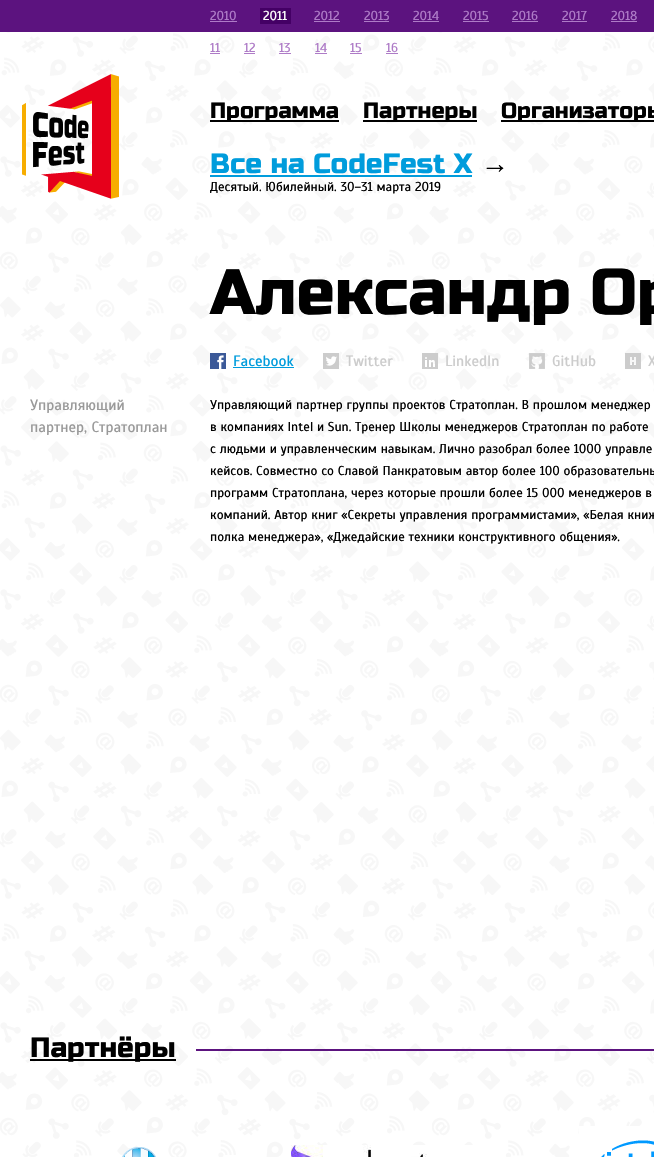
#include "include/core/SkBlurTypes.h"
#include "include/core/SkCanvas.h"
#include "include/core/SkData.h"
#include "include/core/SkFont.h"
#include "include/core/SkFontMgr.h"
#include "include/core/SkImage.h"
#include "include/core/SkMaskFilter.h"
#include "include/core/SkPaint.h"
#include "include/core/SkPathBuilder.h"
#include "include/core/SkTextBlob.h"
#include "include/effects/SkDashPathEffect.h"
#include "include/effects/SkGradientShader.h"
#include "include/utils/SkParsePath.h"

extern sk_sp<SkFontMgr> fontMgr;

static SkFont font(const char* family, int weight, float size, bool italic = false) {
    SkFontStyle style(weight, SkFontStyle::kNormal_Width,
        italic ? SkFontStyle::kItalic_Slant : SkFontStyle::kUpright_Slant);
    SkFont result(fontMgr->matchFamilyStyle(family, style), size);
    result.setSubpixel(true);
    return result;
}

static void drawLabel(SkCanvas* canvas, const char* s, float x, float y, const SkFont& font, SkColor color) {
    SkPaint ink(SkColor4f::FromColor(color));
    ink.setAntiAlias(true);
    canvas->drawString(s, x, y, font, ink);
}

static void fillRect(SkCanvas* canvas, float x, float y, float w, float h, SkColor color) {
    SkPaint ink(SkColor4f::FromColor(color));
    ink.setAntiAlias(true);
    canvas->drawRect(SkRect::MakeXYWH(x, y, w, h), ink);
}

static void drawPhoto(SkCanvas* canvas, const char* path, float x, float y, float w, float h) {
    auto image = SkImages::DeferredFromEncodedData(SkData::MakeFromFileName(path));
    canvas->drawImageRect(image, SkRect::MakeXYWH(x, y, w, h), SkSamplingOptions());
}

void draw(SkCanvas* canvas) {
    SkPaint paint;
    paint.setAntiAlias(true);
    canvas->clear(0xFFFFFFFF);
    drawPhoto(canvas, "assets/img1.png", 0, 32, 654, 1125);
    fillRect(canvas, 0, 0, 654, 32, 0xFF5C137F);
    SkFont font1 = font("Scada", 400, 13);
    drawLabel(canvas, "2010", 210, 20, font1, 0xFFAE7BC7);
    fillRect(canvas, 210, 21, 27, 1, 0xFFAE7BC7);
    fillRect(canvas, 260, 8, 31, 16, 0xFF440065);
    drawLabel(canvas, "2011", 263, 20, font1, 0xFFFFFFFF);
    drawLabel(canvas, "2012", 314, 20, font1, 0xFFAE7BC7);
    fillRect(canvas, 314, 21, 26, 1, 0xFFAE7BC7);
    drawLabel(canvas, "2013", 364, 20, font1, 0xFFAE7BC7);
    fillRect(canvas, 364, 21, 25, 1, 0xFFAE7BC7);
    drawLabel(canvas, "2014", 413, 20, font1, 0xFFAE7BC7);
    fillRect(canvas, 413, 21, 26, 1, 0xFFAE7BC7);
    drawLabel(canvas, "2015", 463, 20, font1, 0xFFAE7BC7);
    fillRect(canvas, 463, 21, 26, 1, 0xFFAE7BC7);
    drawLabel(canvas, "2016", 512, 20, font1, 0xFFAE7BC7);
    fillRect(canvas, 512, 21, 26, 1, 0xFFAE7BC7);
    drawLabel(canvas, "2017", 562, 20, font1, 0xFFAE7BC7);
    fillRect(canvas, 562, 21, 25, 1, 0xFFAE7BC7);
    drawLabel(canvas, "2018", 611, 20, font1, 0xFFAE7BC7);
    fillRect(canvas, 611, 21, 26, 1, 0xFFAE7BC7);
    drawLabel(canvas, "11", 210, 52, font1, 0xFFAE7BC7);
    fillRect(canvas, 210, 53, 10, 1, 0xFFAE7BC7);
    drawLabel(canvas, "12", 244, 52, font1, 0xFFAE7BC7);
    fillRect(canvas, 244, 53, 11, 1, 0xFFAE7BC7);
    drawLabel(canvas, "13", 279, 52, font1, 0xFFAE7BC7);
    fillRect(canvas, 279, 53, 12, 1, 0xFFAE7BC7);
    drawLabel(canvas, "14", 315, 52, font1, 0xFFAE7BC7);
    fillRect(canvas, 315, 53, 12, 1, 0xFFAE7BC7);
    drawLabel(canvas, "15", 350, 52, font1, 0xFFAE7BC7);
    fillRect(canvas, 350, 53, 12, 1, 0xFFAE7BC7);
    drawLabel(canvas, "16", 386, 52, font1, 0xFFAE7BC7);
    fillRect(canvas, 386, 53, 12, 1, 0xFFAE7BC7);
    drawPhoto(canvas, "assets/img2.png", 22, 74, 97, 125);
    fillRect(canvas, 210, 120, 129, 2, 0xFF000000);
    SkFont font2 = font("Russo One", 400, 22);
    drawLabel(canvas, "Программа", 210, 118, font2, 0xFF000000);
    fillRect(canvas, 363, 120, 114, 2, 0xFF000000);
    drawLabel(canvas, "Партнеры", 363, 118, font2, 0xFF000000);
    fillRect(canvas, 501, 120, 153, 2, 0xFF000000);
    drawLabel(canvas, "Организаторы", 501, 118, font2, 0xFF000000);
    SkFont font3 = font("Russo One", 400, 28);
    drawLabel(canvas, "Все на CodeFest X", 210, 173, font3, 0xFF009CDC);
    fillRect(canvas, 210, 175, 262, 2, 0xFF009CDC);
    SkFont font4 = font("Liberation Sans", 400, 28);
    drawLabel(canvas, "→", 481, 173, font4, 0xFF000000);
    drawLabel(canvas, "Десятый. Юбилейный. 30–31 марта 2019", 210, 191, font1, 0xFF000000);
    SkFont font5 = font("Russo One", 400, 64);
    drawLabel(canvas, "Александр Ор", 210, 314, font5, 0xFF000000);
    drawPhoto(canvas, "assets/img3.png", 210, 353, 16, 16);
    SkFont font6 = font("Scada", 400, 15);
    drawLabel(canvas, "Facebook", 233, 366, font6, 0xFF009CDC);
    fillRect(canvas, 233, 367, 61, 1, 0xFF009CDC);
    drawPhoto(canvas, "assets/img4.png", 323, 353, 16, 16);
    drawLabel(canvas, "Twitter", 346, 366, font6, 0xFFCCCCCC);
    drawPhoto(canvas, "assets/img5.png", 422, 353, 16, 16);
    drawLabel(canvas, "LinkedIn", 445, 366, font6, 0xFFCCCCCC);
    drawPhoto(canvas, "assets/img6.png", 529, 353, 16, 16);
    drawLabel(canvas, "GitHub", 552, 366, font6, 0xFFCCCCCC);
    drawPhoto(canvas, "assets/img7.png", 625, 353, 16, 16);
    drawLabel(canvas, "Х", 648, 366, font6, 0xFFCCCCCC);
    drawLabel(canvas, "Управляющий", 30, 410, font6, 0xFF999999);
    drawLabel(canvas, "партнер, Стратоплан", 30, 432, font6, 0xFF999999);
    drawLabel(canvas, "Управляющий партнер группы проектов Стратоплан. В прошлом менеджер", 210, 409, font1, 0xFF000000);
    drawLabel(canvas, "в компаниях Intel и Sun. Тренер Школы менеджеров Стратоплан по работе", 210, 431, font1, 0xFF000000);
    drawLabel(canvas, "с людьми и управленческим навыкам. Лично разобрал более 1000 управле", 210, 453, font1, 0xFF000000);
    drawLabel(canvas, "кейсов. Совместно со Славой Панкратовым автор более 100 образовательны", 210, 475, font1, 0xFF000000);
    drawLabel(canvas, "программ Стратоплана, через которые прошли более 15 000 менеджеров в", 210, 497, font1, 0xFF000000);
    drawLabel(canvas, "компаний. Автор книг «Секреты управления программистами», «Белая книж", 210, 519, font1, 0xFF000000);
    drawLabel(canvas, "полка менеджера», «Джедайские техники конструктивного общения».", 210, 541, font1, 0xFF000000);
    fillRect(canvas, 30, 1059, 146, 2, 0xFF000000);
    drawLabel(canvas, "Партнёры", 30, 1057, font3, 0xFF000000);
    fillRect(canvas, 196, 1049, 458, 2, 0xFF5C137F);
    drawPhoto(canvas, "assets/img8.png", 122, 1147, 34, 10);
    drawPhoto(canvas, "assets/img9.png", 291, 1145, 182, 12);
    drawPhoto(canvas, "assets/img10.png", 579, 1126, 75, 31);
}
